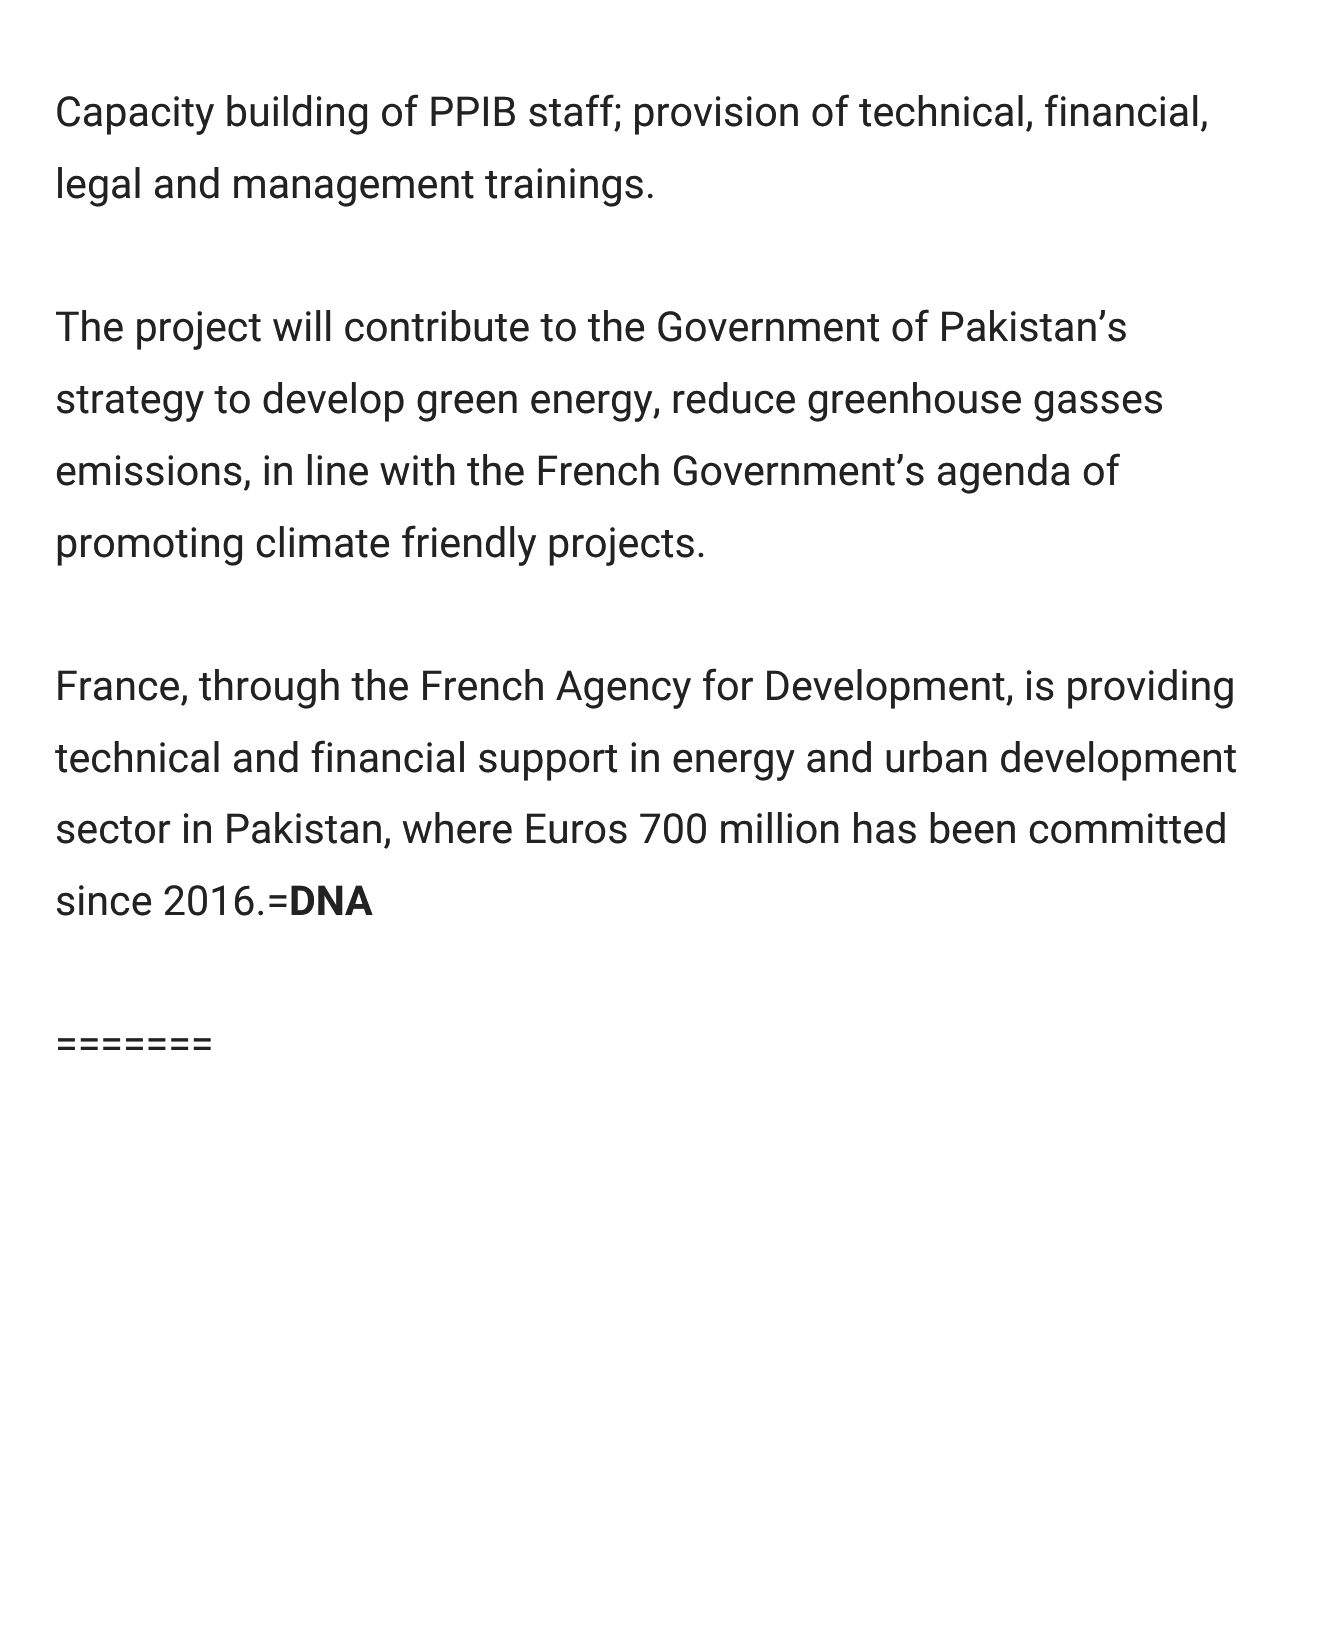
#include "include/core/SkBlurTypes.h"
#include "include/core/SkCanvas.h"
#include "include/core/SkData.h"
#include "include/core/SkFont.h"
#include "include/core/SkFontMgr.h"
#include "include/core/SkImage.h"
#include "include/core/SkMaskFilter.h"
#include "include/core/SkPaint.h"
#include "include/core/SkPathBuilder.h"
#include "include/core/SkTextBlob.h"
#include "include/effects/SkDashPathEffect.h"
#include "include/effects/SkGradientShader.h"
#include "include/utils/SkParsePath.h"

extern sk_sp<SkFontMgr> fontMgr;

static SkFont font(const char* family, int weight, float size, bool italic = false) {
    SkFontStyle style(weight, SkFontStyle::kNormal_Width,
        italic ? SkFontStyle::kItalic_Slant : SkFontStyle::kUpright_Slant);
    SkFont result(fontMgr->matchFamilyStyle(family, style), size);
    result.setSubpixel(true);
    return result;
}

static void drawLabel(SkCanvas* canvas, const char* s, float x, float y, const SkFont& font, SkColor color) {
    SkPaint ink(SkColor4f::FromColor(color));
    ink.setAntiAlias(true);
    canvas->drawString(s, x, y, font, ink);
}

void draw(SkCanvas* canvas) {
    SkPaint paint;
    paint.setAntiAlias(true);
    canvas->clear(0xFFFFFFFF);
    SkFont font1 = font("Roboto", 400, 41.25f);
    drawLabel(canvas, "Capacity building of PPIB staff; provision of technical, financial,", 55, 126, font1, 0xFF222222);
    drawLabel(canvas, "legal and management trainings.", 55, 198, font1, 0xFF222222);
    drawLabel(canvas, "The project will contribute to the Government of Pakistan’s", 55, 341, font1, 0xFF222222);
    drawLabel(canvas, "strategy to develop green energy, reduce greenhouse gasses", 55, 413, font1, 0xFF222222);
    drawLabel(canvas, "emissions, in line with the French Government’s agenda of", 55, 485, font1, 0xFF222222);
    drawLabel(canvas, "promoting climate friendly projects.", 55, 557, font1, 0xFF222222);
    drawLabel(canvas, "France, through the French Agency for Development, is providing", 55, 700, font1, 0xFF222222);
    drawLabel(canvas, "technical and financial support in energy and urban development", 55, 772, font1, 0xFF222222);
    drawLabel(canvas, "sector in Pakistan, where Euros 700 million has been committed", 55, 843, font1, 0xFF222222);
    drawLabel(canvas, "since 2016.=", 55, 915, font1, 0xFF222222);
    SkFont font2 = font("Roboto", 700, 41.25f);
    drawLabel(canvas, "DNA", 289, 915, font2, 0xFF222222);
    drawLabel(canvas, "=======", 55, 1058, font1, 0xFF222222);
}
